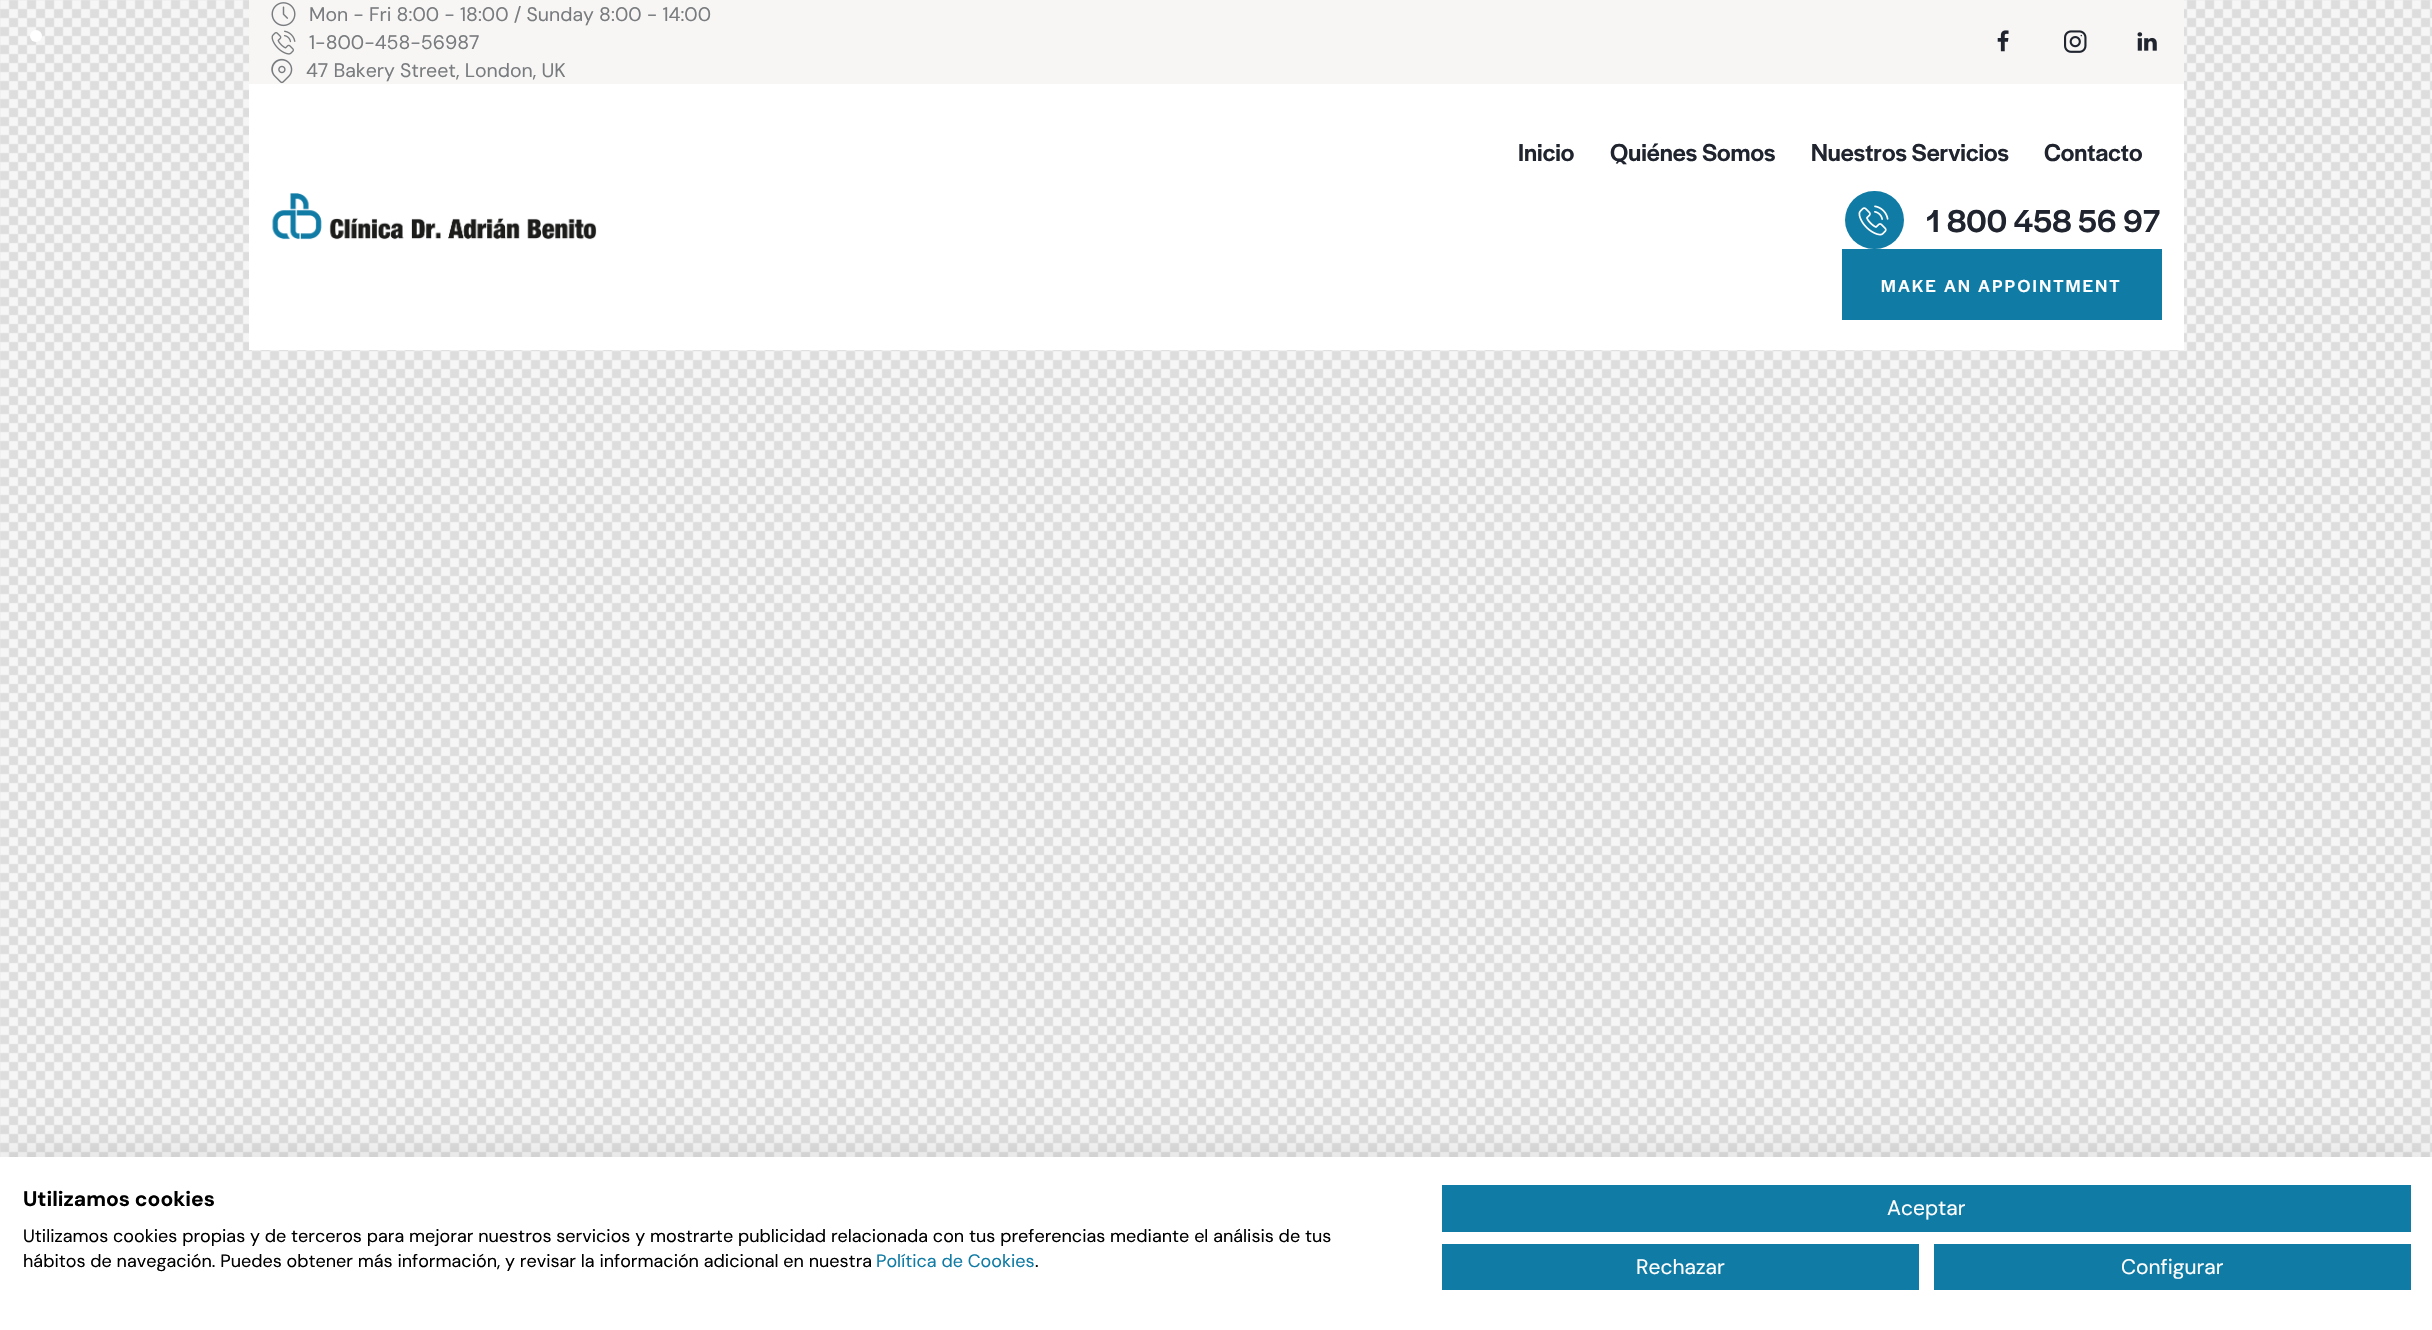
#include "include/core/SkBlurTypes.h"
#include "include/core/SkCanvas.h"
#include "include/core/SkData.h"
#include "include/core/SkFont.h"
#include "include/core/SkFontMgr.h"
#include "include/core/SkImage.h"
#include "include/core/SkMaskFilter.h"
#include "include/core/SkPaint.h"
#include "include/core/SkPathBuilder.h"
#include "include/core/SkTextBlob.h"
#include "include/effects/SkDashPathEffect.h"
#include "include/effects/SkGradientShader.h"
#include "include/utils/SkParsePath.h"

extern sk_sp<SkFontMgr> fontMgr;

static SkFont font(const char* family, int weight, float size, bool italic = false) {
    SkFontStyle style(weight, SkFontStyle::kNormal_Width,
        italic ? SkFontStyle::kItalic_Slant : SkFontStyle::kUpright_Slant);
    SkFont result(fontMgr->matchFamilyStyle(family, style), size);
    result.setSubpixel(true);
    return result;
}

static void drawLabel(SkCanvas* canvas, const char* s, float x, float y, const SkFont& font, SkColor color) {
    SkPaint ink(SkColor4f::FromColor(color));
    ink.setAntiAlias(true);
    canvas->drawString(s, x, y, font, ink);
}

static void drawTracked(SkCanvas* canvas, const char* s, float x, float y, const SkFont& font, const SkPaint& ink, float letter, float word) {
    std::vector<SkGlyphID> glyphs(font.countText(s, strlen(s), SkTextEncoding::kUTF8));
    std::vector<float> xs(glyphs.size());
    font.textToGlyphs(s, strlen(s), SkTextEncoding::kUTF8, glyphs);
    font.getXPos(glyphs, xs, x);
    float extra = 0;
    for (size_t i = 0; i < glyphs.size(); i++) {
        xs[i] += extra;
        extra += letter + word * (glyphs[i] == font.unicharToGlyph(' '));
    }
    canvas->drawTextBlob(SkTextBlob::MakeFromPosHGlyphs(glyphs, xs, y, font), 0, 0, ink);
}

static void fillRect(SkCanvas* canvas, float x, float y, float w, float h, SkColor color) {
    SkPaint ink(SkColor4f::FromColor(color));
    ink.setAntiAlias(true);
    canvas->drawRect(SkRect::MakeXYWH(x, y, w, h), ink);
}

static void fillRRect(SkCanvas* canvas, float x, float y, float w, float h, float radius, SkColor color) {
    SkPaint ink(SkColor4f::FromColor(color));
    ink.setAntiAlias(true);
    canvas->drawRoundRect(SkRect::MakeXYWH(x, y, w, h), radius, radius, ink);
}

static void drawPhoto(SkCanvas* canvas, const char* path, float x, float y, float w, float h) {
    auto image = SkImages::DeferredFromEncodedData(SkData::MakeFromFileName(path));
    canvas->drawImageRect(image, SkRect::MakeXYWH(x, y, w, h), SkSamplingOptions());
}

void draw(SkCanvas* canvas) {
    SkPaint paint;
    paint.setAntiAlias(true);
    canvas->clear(0xFFFFFFFF);
    drawPhoto(canvas, "assets/img1.png", 0, 0, 2432, 1157);
    paint.setColor(0xFFFFFFFF);
    canvas->drawCircle(36, 36, 6, paint);
    fillRect(canvas, 249, 0, 1935, 84, 0xFFF7F6F4);
    drawPhoto(canvas, "assets/img2.png", 271, 2, 25, 25);
    SkFont font1 = font("DM Sans", 400, 19.5f);
    drawLabel(canvas, "Mon - Fri 8:00 - 18:00 / Sunday 8:00 - 14:00", 309, 21, font1, 0xFF797C7F);
    drawPhoto(canvas, "assets/img3.png", 271, 30, 25, 25);
    drawLabel(canvas, "1-800-458-56987", 309, 49, font1, 0xFF797C7F);
    drawPhoto(canvas, "assets/img4.png", 271, 58, 22, 26);
    drawLabel(canvas, "47 Bakery Street, London, UK", 306, 77, font1, 0xFF797C7F);
    drawPhoto(canvas, "assets/img5.png", 1997, 30, 12, 22);
    drawPhoto(canvas, "assets/img6.png", 2064, 30, 23, 23);
    drawPhoto(canvas, "assets/img7.png", 2137, 32, 20, 19);
    fillRect(canvas, 249, 84, 1935, 266, 0xFFFFFFFF);
    drawPhoto(canvas, "assets/img8.png", 272, 193, 325, 47);
    SkFont font2 = font("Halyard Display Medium", 500, 25.5f);
    drawLabel(canvas, "Inicio", 1518, 161, font2, 0xFF1F242E);
    drawLabel(canvas, "Quiénes Somos", 1610, 161, font2, 0xFF1F242E);
    drawLabel(canvas, "Nuestros Servicios", 1811, 161, font2, 0xFF1F242E);
    drawLabel(canvas, "Contacto", 2044, 161, font2, 0xFF1F242E);
    fillRRect(canvas, 1845, 191, 59, 58, 29, 0xFF107BA5);
    drawPhoto(canvas, "assets/img9.png", 1858, 205, 31, 31);
    SkFont font3 = font("Halyard Display Medium", 500, 33);
    drawLabel(canvas, "1 800 458 56 97", 1926, 232, font3, 0xFF1F242E);
    fillRect(canvas, 1842, 249, 320, 71, 0xFF107BA5);
    SkFont font4 = font("Halyard Display Medium", 500, 18);
    drawTracked(canvas, "MAKE AN APPOINTMENT", 1881, 292, font4, paint, 2.25f, 0);
    paint.setColor(0x1A000000);
    paint.setMaskFilter(SkMaskFilter::MakeBlur(kNormal_SkBlurStyle, 18));
    canvas->drawRect(SkRect::MakeXYWH(0, 1157, 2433, 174), paint);
    paint.setMaskFilter(nullptr);
    fillRect(canvas, 0, 1157, 2432, 173, 0xFFFFFFFF);
    SkFont font5 = font("DM Sans", 700, 21);
    drawLabel(canvas, "Utilizamos cookies", 23, 1206, font5, 0xFF000000);
    SkFont font6 = font("DM Sans", 400, 18);
    drawLabel(canvas, "Utilizamos cookies propias y de terceros para mejorar nuestros servicios y mostrarte publicidad relacionada con tus preferencias mediante el análisis de tus", 23, 1242, font6, 0xFF000000);
    drawLabel(canvas, "hábitos de navegación. Puedes obtener más información, y revisar la información adicional en nuestra", 23, 1267, font6, 0xFF000000);
    drawLabel(canvas, "Política de Cookies", 876, 1267, font6, 0xFF107BA5);
    drawLabel(canvas, ".", 1035, 1267, font6, 0xFF000000);
    fillRect(canvas, 1442, 1185, 969, 47, 0xFF107BA5);
    SkFont font7 = font("DM Sans", 400, 21);
    drawLabel(canvas, "Aceptar", 1887, 1215, font7, 0xFFFFFFFF);
    fillRect(canvas, 1442, 1244, 477, 46, 0xFF107BA5);
    drawLabel(canvas, "Rechazar", 1636, 1274, font7, 0xFFFFFFFF);
    fillRect(canvas, 1934, 1244, 477, 46, 0xFF107BA5);
    drawLabel(canvas, "Configurar", 2121, 1274, font7, 0xFFFFFFFF);
}
